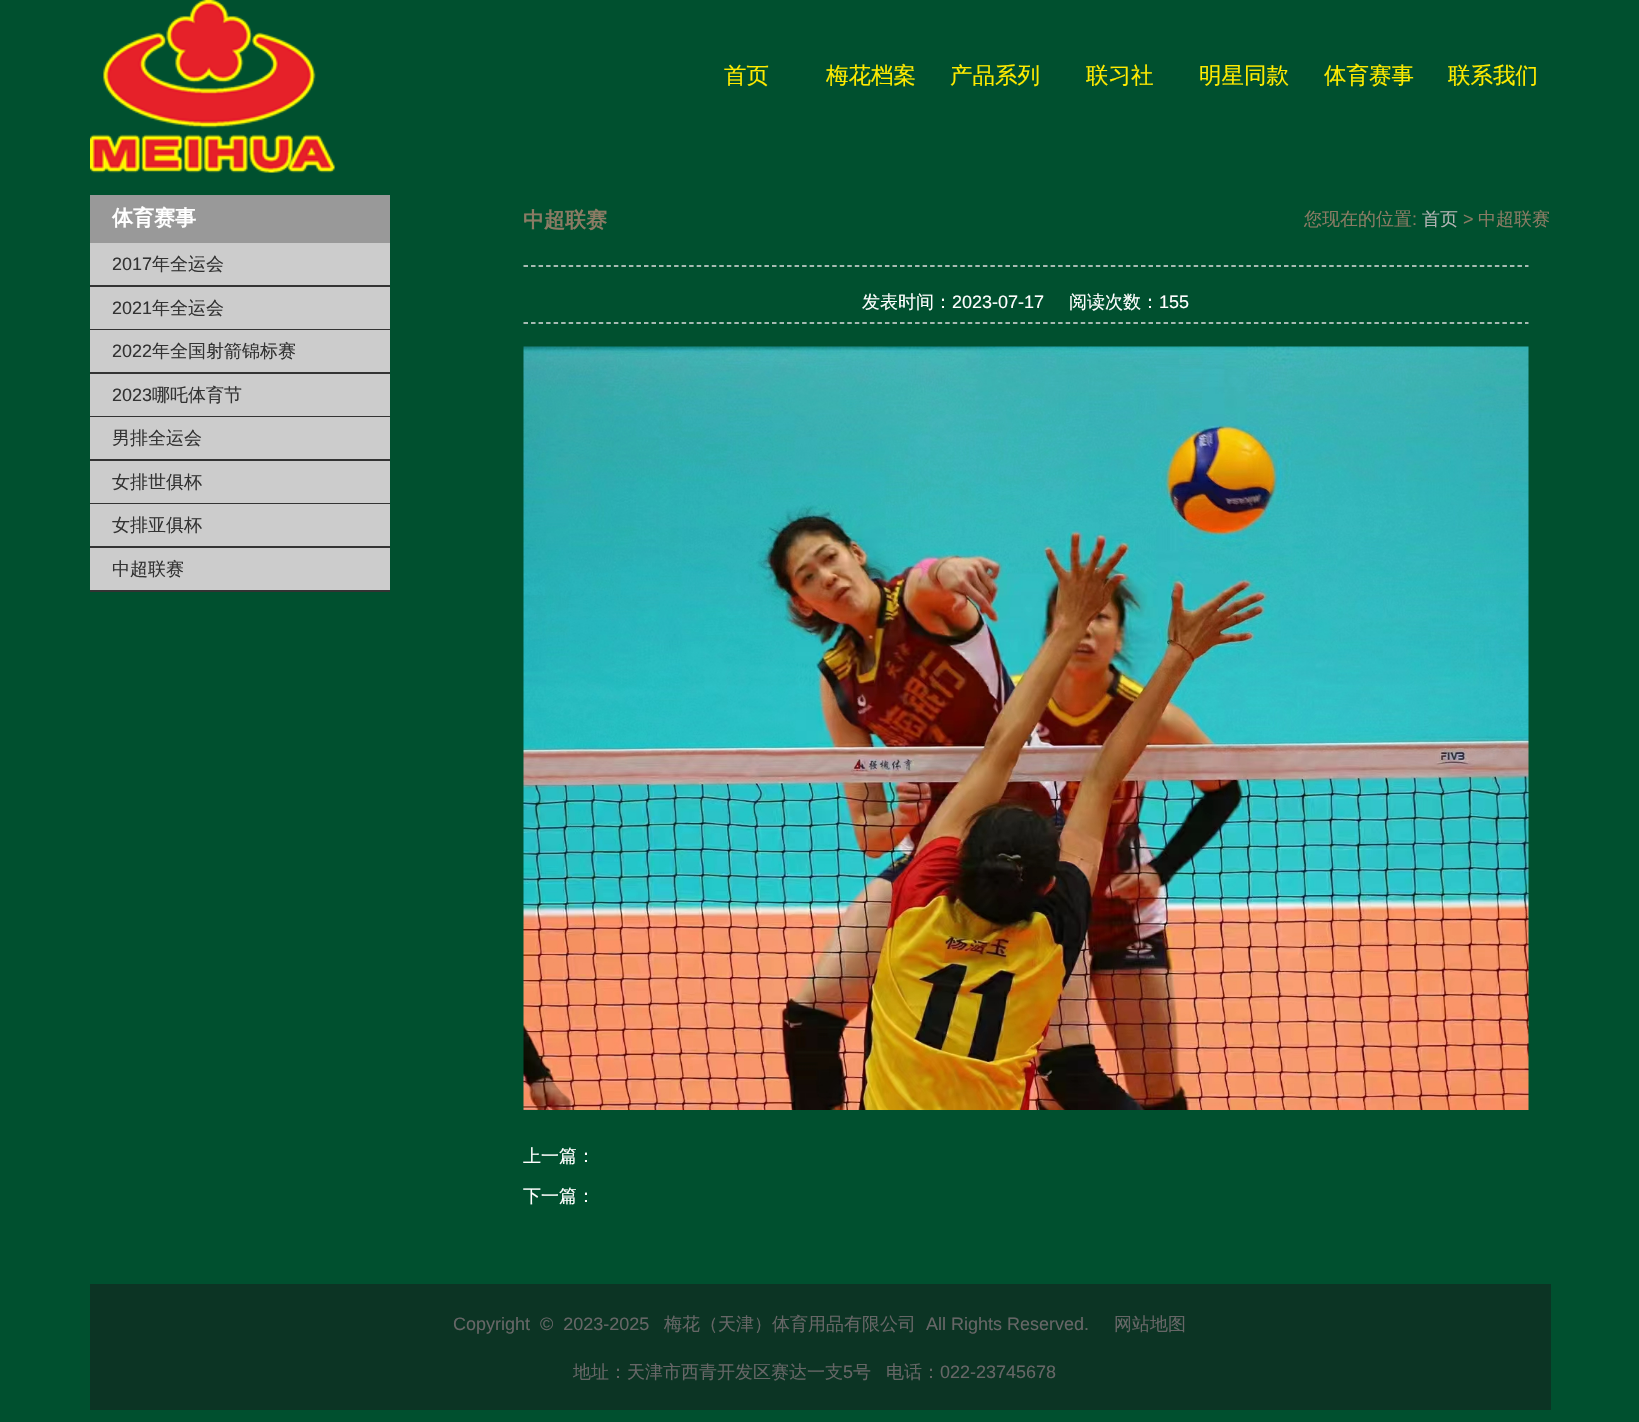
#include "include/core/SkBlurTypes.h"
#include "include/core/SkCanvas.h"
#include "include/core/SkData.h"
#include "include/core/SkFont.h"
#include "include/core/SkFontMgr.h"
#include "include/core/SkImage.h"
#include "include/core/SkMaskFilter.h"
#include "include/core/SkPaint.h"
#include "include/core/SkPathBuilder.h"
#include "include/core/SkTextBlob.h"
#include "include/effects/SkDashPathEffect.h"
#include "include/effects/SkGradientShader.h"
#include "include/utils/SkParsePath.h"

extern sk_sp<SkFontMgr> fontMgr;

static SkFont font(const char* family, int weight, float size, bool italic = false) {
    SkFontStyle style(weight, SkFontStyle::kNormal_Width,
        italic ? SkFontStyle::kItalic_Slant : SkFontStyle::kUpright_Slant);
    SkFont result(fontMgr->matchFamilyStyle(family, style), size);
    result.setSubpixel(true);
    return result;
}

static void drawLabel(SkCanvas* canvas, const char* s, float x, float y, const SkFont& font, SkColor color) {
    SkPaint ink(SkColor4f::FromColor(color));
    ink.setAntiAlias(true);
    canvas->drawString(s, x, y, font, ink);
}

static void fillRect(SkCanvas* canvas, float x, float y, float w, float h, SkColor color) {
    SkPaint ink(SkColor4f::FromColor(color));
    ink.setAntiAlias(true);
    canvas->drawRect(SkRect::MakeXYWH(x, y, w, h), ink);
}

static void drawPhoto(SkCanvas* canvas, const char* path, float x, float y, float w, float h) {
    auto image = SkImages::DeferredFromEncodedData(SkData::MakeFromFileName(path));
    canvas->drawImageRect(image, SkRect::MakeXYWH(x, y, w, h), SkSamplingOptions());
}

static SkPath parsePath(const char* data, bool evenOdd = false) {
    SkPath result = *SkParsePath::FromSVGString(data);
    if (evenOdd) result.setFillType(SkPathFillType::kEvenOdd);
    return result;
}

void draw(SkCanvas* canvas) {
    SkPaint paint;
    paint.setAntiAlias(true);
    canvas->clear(0xFF00502F);
    drawPhoto(canvas, "assets/img1.png", 90, 0, 245, 173);
    SkFont font1 = font("WenQuanYi Zen Hei", 500, 22.5f);
    drawLabel(canvas, "首页", 724, 83, font1, 0xFFFFEB00);
    drawLabel(canvas, "梅花档案", 826, 83, font1, 0xFFFFEB00);
    drawLabel(canvas, "产品系列", 950, 83, font1, 0xFFFFEB00);
    drawLabel(canvas, "联习社", 1086, 83, font1, 0xFFFFEB00);
    drawLabel(canvas, "明星同款", 1199, 83, font1, 0xFFFFEB00);
    drawLabel(canvas, "体育赛事", 1324, 83, font1, 0xFFFFEB00);
    drawLabel(canvas, "联系我们", 1448, 83, font1, 0xFFFFEB00);
    fillRect(canvas, 90, 195, 300, 48, 0xFF999999);
    SkFont font2 = font("WenQuanYi Zen Hei", 700, 21);
    drawLabel(canvas, "体育赛事", 112, 225, font2, 0xFFFFFFFF);
    fillRect(canvas, 90, 243, 300, 42, 0xFFCCCCCC);
    fillRect(canvas, 90, 285, 300, 2, 0xFF333333);
    SkFont font3 = font("Liberation Sans", 400, 18);
    drawLabel(canvas, "2017", 112, 270, font3, 0xFF333333);
    SkFont font4 = font("WenQuanYi Zen Hei", 500, 18);
    drawLabel(canvas, "年全运会", 152, 270, font4, 0xFF333333);
    fillRect(canvas, 90, 287, 300, 42, 0xFFCCCCCC);
    fillRect(canvas, 90, 329, 300, 1, 0xFF333333);
    drawLabel(canvas, "2021", 112, 314, font3, 0xFF333333);
    drawLabel(canvas, "年全运会", 152, 314, font4, 0xFF333333);
    fillRect(canvas, 90, 330, 300, 42, 0xFFCCCCCC);
    fillRect(canvas, 90, 372, 300, 2, 0xFF333333);
    drawLabel(canvas, "2022", 112, 357, font3, 0xFF333333);
    drawLabel(canvas, "年全国射箭锦标赛", 152, 357, font4, 0xFF333333);
    fillRect(canvas, 90, 374, 300, 42, 0xFFCCCCCC);
    fillRect(canvas, 90, 416, 300, 1, 0xFF333333);
    drawLabel(canvas, "2023", 112, 401, font3, 0xFF333333);
    drawLabel(canvas, "哪吒体育节", 152, 401, font4, 0xFF333333);
    fillRect(canvas, 90, 417, 300, 42, 0xFFCCCCCC);
    fillRect(canvas, 90, 459, 300, 2, 0xFF333333);
    drawLabel(canvas, "男排全运会", 112, 444, font4, 0xFF333333);
    fillRect(canvas, 90, 461, 300, 42, 0xFFCCCCCC);
    fillRect(canvas, 90, 503, 300, 1, 0xFF333333);
    drawLabel(canvas, "女排世俱杯", 112, 488, font4, 0xFF333333);
    fillRect(canvas, 90, 504, 300, 42, 0xFFCCCCCC);
    fillRect(canvas, 90, 546, 300, 2, 0xFF333333);
    drawLabel(canvas, "女排亚俱杯", 112, 531, font4, 0xFF333333);
    fillRect(canvas, 90, 548, 300, 42, 0xFFCCCCCC);
    fillRect(canvas, 90, 590, 300, 2, 0xFF333333);
    drawLabel(canvas, "中超联赛", 112, 575, font4, 0xFF333333);
    drawLabel(canvas, "中超联赛", 523, 227, font2, 0xFF8B7B64);
    drawLabel(canvas, "您现在的位置", 1304, 225, font4, 0xFF8B7B64);
    drawLabel(canvas, ":", 1412, 225, font3, 0xFF8B7B64);
    drawLabel(canvas, "首页", 1422, 225, font4, 0xFFB4B4B4);
    drawLabel(canvas, ">", 1463, 225, font3, 0xFF8B7B64);
    drawLabel(canvas, "中超联赛", 1478, 225, font4, 0xFF8B7B64);
    paint.setStroke(true);
    paint.setStrokeWidth(1.5f);
    paint.setColor(0xFFDDDDDD);
    paint.setPathEffect(SkDashPathEffect::Make({{4.5f, 3.03f}}, 0));
    canvas->drawPath(parsePath("M523.5 266H1528.5"), paint);
    paint.setPathEffect(nullptr);
    paint.setPathEffect(SkDashPathEffect::Make({{4.5f, 3.03f}}, 0));
    canvas->drawPath(parsePath("M523.5 323H1528.5"), paint);
    paint.setPathEffect(nullptr);
    drawLabel(canvas, "发表时间：", 862, 308, font4, 0xFFFFFFFF);
    drawLabel(canvas, "2023-07-17", 952, 308, font3, 0xFFFFFFFF);
    drawLabel(canvas, "阅读次数：", 1069, 308, font4, 0xFFFFFFFF);
    drawLabel(canvas, "155", 1159, 308, font3, 0xFFFFFFFF);
    drawPhoto(canvas, "assets/img2.png", 523, 346, 1006, 764);
    drawLabel(canvas, "上一篇：", 523, 1162, font4, 0xFFFFFFFF);
    drawLabel(canvas, "下一篇：", 523, 1202, font4, 0xFFFFFFFF);
    fillRect(canvas, 90, 1284, 1461, 126, 0xFF0C3424);
    drawLabel(canvas, "Copyright  ©  2023-2025", 453, 1330, font3, 0xFF666666);
    drawLabel(canvas, "梅花（天津）体育用品有限公司", 664, 1330, font4, 0xFF666666);
    drawLabel(canvas, "All Rights Reserved.", 926, 1330, font3, 0xFF666666);
    drawLabel(canvas, "网站地图", 1114, 1330, font4, 0xFF666666);
    drawLabel(canvas, "地址：天津市西青开发区赛达一支", 573, 1378, font4, 0xFF666666);
    drawLabel(canvas, "5", 843, 1378, font3, 0xFF666666);
    drawLabel(canvas, "号", 853, 1378, font4, 0xFF666666);
    drawLabel(canvas, "电话：", 886, 1378, font4, 0xFF666666);
    drawLabel(canvas, "022-23745678", 940, 1378, font3, 0xFF666666);
}
